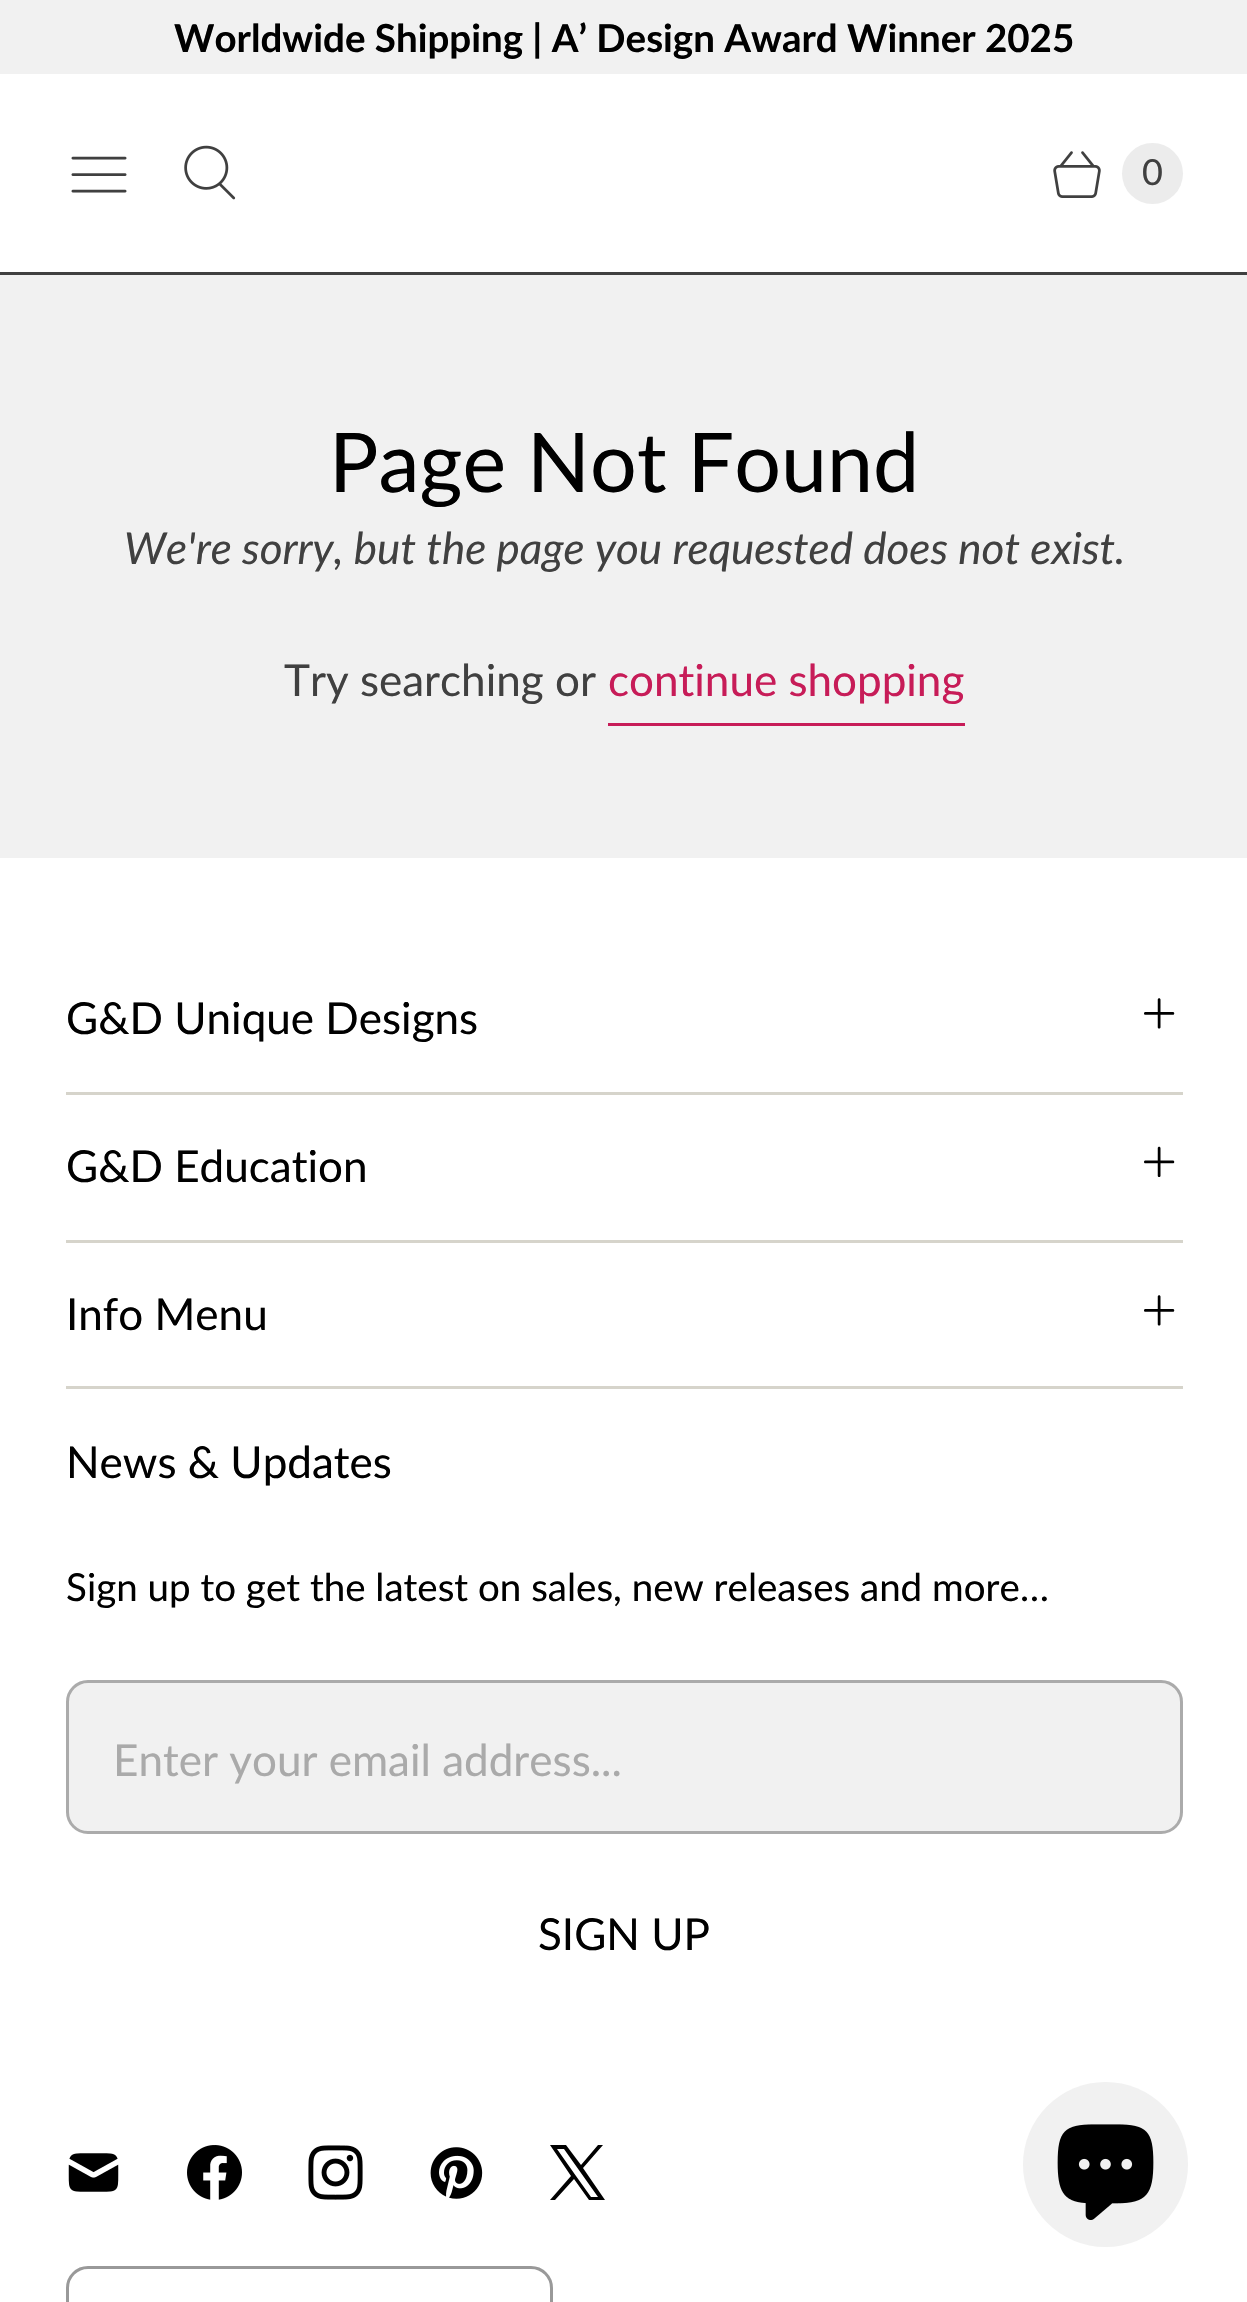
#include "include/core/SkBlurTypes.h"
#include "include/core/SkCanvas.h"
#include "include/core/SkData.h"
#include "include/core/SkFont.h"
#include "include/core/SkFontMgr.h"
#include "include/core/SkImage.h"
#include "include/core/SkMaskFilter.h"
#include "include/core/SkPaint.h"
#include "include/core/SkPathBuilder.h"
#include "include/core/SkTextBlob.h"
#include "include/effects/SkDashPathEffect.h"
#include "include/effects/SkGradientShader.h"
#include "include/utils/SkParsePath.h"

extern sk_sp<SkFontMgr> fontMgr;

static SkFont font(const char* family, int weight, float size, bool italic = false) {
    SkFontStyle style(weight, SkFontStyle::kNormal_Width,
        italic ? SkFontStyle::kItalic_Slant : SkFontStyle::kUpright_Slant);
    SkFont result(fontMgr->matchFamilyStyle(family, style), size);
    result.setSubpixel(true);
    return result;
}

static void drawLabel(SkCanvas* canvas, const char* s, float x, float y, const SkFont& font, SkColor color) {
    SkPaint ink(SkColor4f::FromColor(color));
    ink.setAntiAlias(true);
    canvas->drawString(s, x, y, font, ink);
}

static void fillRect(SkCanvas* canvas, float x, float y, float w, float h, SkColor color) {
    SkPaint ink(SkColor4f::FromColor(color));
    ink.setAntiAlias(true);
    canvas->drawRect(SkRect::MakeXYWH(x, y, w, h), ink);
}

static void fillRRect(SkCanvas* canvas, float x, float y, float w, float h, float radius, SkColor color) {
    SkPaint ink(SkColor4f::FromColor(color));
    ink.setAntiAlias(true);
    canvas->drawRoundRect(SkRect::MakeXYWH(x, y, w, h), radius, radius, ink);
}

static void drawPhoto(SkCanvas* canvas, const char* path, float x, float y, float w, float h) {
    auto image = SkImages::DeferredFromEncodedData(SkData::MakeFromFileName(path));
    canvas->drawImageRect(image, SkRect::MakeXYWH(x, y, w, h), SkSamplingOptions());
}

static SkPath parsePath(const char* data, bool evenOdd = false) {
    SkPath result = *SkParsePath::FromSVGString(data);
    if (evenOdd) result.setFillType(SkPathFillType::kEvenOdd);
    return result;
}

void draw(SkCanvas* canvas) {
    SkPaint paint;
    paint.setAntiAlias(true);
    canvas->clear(0xFFF1F1F1);
    SkFont font1 = font("Lato", 700, 38.5f);
    drawLabel(canvas, "Worldwide Shipping | A’ Design Award Winner 2025", 174, 52, font1, 0xFF000000);
    fillRect(canvas, 0, 74, 1247, 198, 0xFFFFFFFF);
    fillRect(canvas, 0, 272, 1247, 3, 0xFF404040);
    drawPhoto(canvas, "assets/img1.png", 71, 156, 56, 37);
    drawPhoto(canvas, "assets/img2.png", 184, 145, 52, 55);
    drawPhoto(canvas, "assets/img3.png", 1053, 151, 48, 47);
    paint.setColor(0xFFECECEC);
    canvas->drawCircle(1152.5f, 173.5f, 30.5f, paint);
    SkFont font2 = font("Lato", 400, 36);
    drawLabel(canvas, "0", 1142, 185, font2, 0xFF404040);
    SkFont font3 = font("Lato", 400, 82.5f);
    drawLabel(canvas, "Page Not Found", 329, 492, font3, 0xFF000000);
    SkFont font4 = font("Lato", 400, 44, true);
    drawLabel(canvas, "We're sorry, but the page you requested does not exist.", 124, 564, font4, 0xFF404040);
    SkFont font5 = font("Lato", 400, 44);
    drawLabel(canvas, "Try searching or", 284, 696, font5, 0xFF404040);
    drawLabel(canvas, "continue shopping", 608, 696, font5, 0xFFC71C58);
    fillRect(canvas, 608, 723, 357, 3, 0xFFC71C58);
    fillRect(canvas, 0, 858, 1247, 1444, 0xFFFFFFFF);
    fillRect(canvas, 66, 1092, 1117, 3, 0xFFD6D4CB);
    drawLabel(canvas, "G&D Unique Designs", 66, 1034, font5, 0xFF000000);
    drawPhoto(canvas, "assets/img4.png", 1144, 998, 31, 31);
    fillRect(canvas, 66, 1240, 1117, 3, 0xFFD6D4CB);
    drawLabel(canvas, "G&D Education", 66, 1182, font5, 0xFF000000);
    drawPhoto(canvas, "assets/img5.png", 1144, 1146, 31, 31);
    fillRect(canvas, 66, 1386, 1117, 3, 0xFFD6D4CB);
    drawLabel(canvas, "Info Menu", 66, 1330, font5, 0xFF000000);
    drawPhoto(canvas, "assets/img4.png", 1144, 1295, 31, 31);
    drawLabel(canvas, "News & Updates", 66, 1478, font5, 0xFF000000);
    SkFont font6 = font("Lato", 400, 38.5f);
    drawLabel(canvas, "Sign up to get the latest on sales, new releases and more…", 66, 1601, font6, 0xFF000000);
    fillRRect(canvas, 66, 1680, 1117, 154, 22, 0xFFF1F1F1);
    paint.setStroke(true);
    paint.setStrokeWidth(3);
    paint.setColor(0x66404040);
    canvas->drawRoundRect(SkRect::MakeXYWH(67.5f, 1681.5f, 1114, 151), 20.5f, 20.5f, paint);
    drawLabel(canvas, "Enter your email address...", 113, 1776, font5, 0xFFAAAAAA);
    drawLabel(canvas, "SIGN UP", 538, 1950, font5, 0xFF000000);
    drawPhoto(canvas, "assets/img6.png", 68, 2153, 51, 39);
    drawPhoto(canvas, "assets/img7.png", 187, 2145, 55, 55);
    drawPhoto(canvas, "assets/img8.png", 308, 2145, 55, 55);
    drawPhoto(canvas, "assets/img9.png", 430, 2147, 53, 52);
    paint.setStroke(false);
    paint.setColor(0xFF000000);
    canvas->drawPath(parsePath("M583 2168L603 2145H598L581 2165L566 2145H550L571 2176L550 2200H555L574 2179L589 2200H605ZM576 2176L557 2149H564L598 2197H591Z"), paint);
    paint.setStroke(true);
    paint.setColor(0xFF999999);
    canvas->drawRoundRect(SkRect::MakeXYWH(67.5f, 2267.5f, 484, 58), 20.5f, 20.5f, paint);
    paint.setStroke(false);
    paint.setColor(0xFFF1F1F1);
    canvas->drawCircle(1105.5f, 2164.5f, 82.5f, paint);
    drawPhoto(canvas, "assets/img10.png", 1057, 2124, 97, 96);
}
